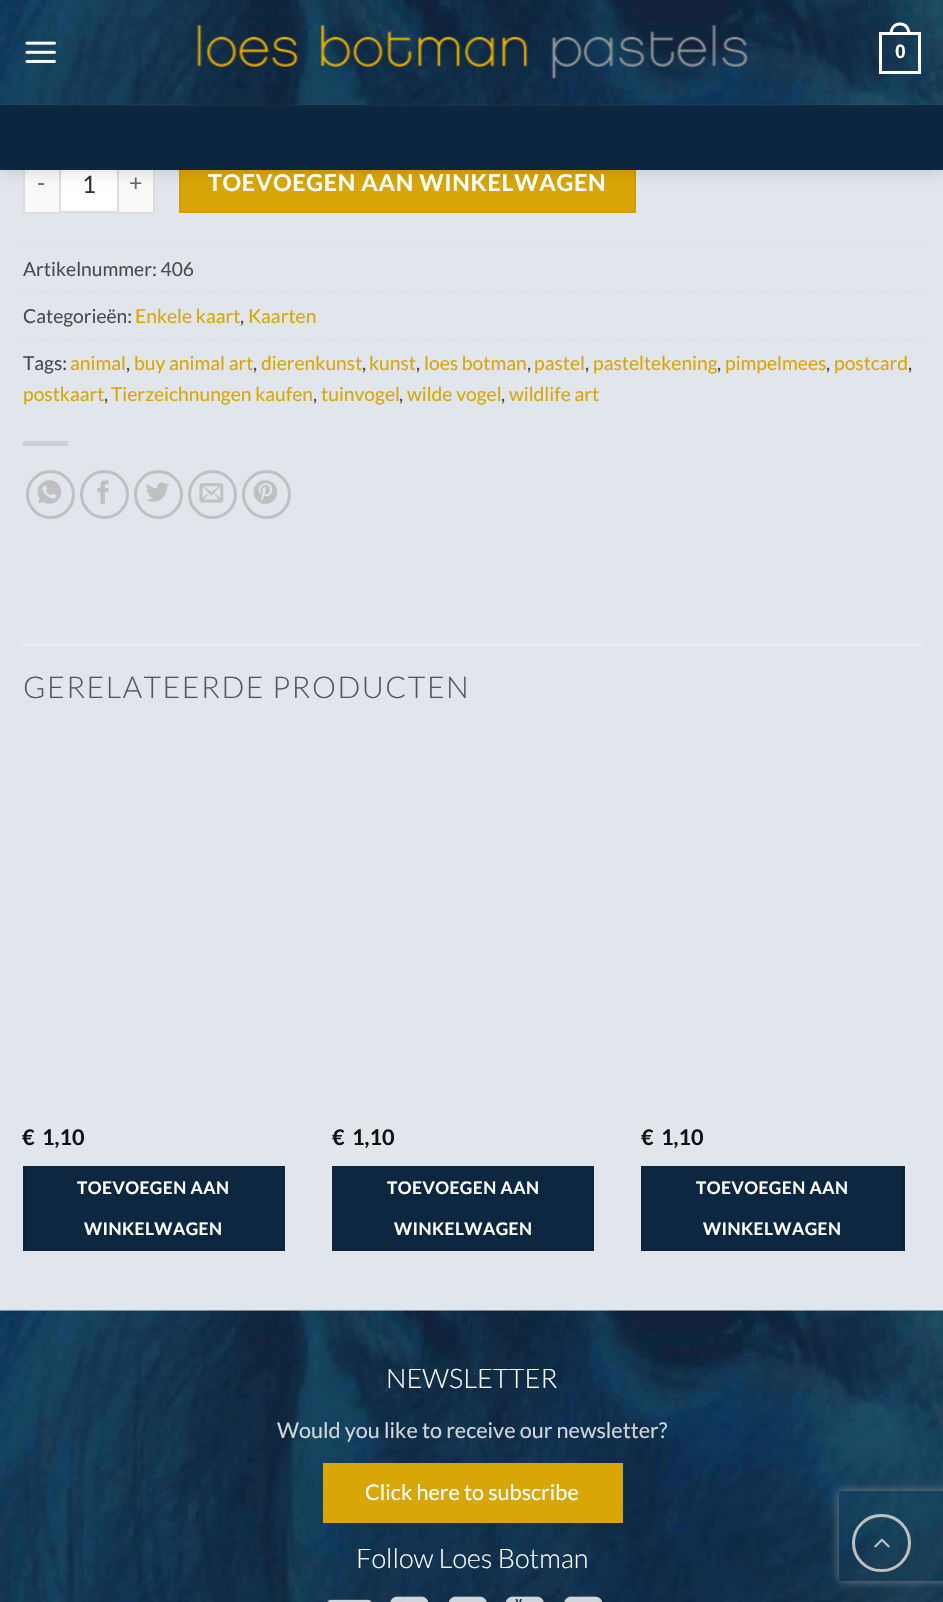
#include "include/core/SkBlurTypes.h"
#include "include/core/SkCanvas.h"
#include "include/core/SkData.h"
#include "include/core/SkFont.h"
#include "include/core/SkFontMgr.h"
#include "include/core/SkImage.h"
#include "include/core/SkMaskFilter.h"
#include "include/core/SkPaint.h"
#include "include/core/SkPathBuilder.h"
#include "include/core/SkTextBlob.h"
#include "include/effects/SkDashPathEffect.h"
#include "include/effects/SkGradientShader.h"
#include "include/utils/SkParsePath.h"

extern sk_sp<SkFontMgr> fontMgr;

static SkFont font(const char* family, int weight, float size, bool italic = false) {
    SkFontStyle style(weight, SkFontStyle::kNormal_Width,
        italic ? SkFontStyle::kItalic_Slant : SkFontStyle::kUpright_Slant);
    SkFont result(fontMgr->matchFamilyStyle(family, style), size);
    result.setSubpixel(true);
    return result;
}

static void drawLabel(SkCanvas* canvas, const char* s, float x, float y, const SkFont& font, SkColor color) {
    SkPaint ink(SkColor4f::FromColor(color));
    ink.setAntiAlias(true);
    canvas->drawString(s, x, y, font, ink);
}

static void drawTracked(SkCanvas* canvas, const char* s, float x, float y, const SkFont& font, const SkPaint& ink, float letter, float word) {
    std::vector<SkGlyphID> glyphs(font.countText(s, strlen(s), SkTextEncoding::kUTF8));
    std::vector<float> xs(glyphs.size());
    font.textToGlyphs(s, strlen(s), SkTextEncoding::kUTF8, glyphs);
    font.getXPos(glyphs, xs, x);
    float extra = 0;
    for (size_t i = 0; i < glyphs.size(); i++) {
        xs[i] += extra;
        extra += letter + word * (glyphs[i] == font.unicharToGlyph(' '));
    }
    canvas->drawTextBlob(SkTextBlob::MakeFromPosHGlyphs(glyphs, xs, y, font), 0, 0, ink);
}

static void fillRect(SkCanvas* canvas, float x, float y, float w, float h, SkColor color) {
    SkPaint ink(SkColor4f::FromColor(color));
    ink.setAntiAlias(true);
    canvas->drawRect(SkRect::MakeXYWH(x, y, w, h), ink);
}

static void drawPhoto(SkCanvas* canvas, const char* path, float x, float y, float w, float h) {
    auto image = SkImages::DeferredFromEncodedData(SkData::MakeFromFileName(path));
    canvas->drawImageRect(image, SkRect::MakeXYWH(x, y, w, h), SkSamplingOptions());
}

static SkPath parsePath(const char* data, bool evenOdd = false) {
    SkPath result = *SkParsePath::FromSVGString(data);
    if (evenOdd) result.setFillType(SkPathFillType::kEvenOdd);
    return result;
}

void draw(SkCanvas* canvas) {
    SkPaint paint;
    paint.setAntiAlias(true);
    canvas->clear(0xFFE0E6EC);
    fillRect(canvas, 25, 170, 34, 42, 0xFFF9F9F9);
    fillRect(canvas, 23, 212, 36, 2, 0xFFDDDDDD);
    fillRect(canvas, 23, 170, 2, 43, 0xFFDDDDDD);
    fillRect(canvas, 61, 170, 56, 41, 0xFFFFFFFF);
    paint.setStroke(true);
    paint.setStrokeWidth(2);
    paint.setColor(0xFFDDDDDD);
    canvas->drawRect(SkRect::MakeXYWH(60, 154, 58, 58), paint);
    fillRect(canvas, 119, 170, 34, 42, 0xFFF9F9F9);
    fillRect(canvas, 153, 170, 2, 43, 0xFFDDDDDD);
    fillRect(canvas, 181, 170, 453, 41, 0xFFD8A606);
    paint.setColor(0xFFCD9E06);
    canvas->drawRect(SkRect::MakeXYWH(180, 154, 455, 58), paint);
    paint.setStroke(false);
    paint.setColor(0x26000000);
    paint.setMaskFilter(SkMaskFilter::MakeBlur(kNormal_SkBlurStyle, 7.5f));
    canvas->drawRect(SkRect::MakeXYWH(2, 2, 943, 169), paint);
    paint.setMaskFilter(nullptr);
    drawPhoto(canvas, "assets/img1.png", 0, 0, 943, 105);
    drawPhoto(canvas, "assets/img2.png", 25, 41, 31, 22);
    drawPhoto(canvas, "assets/img3.png", 197, 24, 552, 55);
    paint.setStroke(true);
    paint.setStrokeWidth(3);
    paint.setColor(0xFFFFFFFF);
    canvas->drawRect(SkRect::MakeXYWH(880.5f, 33.5f, 39, 39), paint);
    paint.setStroke(false);
    canvas->drawPath(parsePath("M900 22.5C907 22.5 910.5 28 910.5 34.5H889.5C889.5 28 893 22.5 900 22.5ZM900 25.5C905.5 25.5 907.5 30 907.5 34.5H892.5C892.5 30 894.5 25.5 900 25.5Z", true), paint);
    SkFont font1 = font("Liberation Sans", 700, 19.25f);
    drawLabel(canvas, "0", 895, 58, font1, 0xFFFFFFFF);
    fillRect(canvas, 0, 105, 943, 65, 0xFF0C263F);
    fillRect(canvas, 23, 105, 898, 2, 0xFF122A40);
    SkFont font2 = font("Lato", 400, 23.25f);
    paint.setColor(0xFF666666);
    drawTracked(canvas, "-", 37, 191, font2, paint, 0.7f, 0);
    SkFont font3 = font("Lato", 400, 24);
    drawLabel(canvas, "1", 82, 193, font3, 0xFF333333);
    fillRect(canvas, 119, 212, 36, 2, 0xFFDDDDDD);
    drawTracked(canvas, "+", 129, 191, font2, paint, 0.7f, 0);
    SkFont font4 = font("Lato", 700, 23.25f);
    paint.setColor(0xFFFFFFFF);
    drawTracked(canvas, "TOEVOEGEN AAN WINKELWAGEN", 208, 191, font4, paint, 0.7f, 0);
    paint.setStroke(true);
    paint.setStrokeWidth(1.5f);
    paint.setColor(0xFFDDDDDD);
    paint.setPathEffect(SkDashPathEffect::Make({{1.5f, 1.5f}}, 0));
    canvas->drawPath(parsePath("M22.5 245H921"), paint);
    paint.setPathEffect(nullptr);
    SkFont font5 = font("Lato", 400, 19.25f);
    drawLabel(canvas, "Artikelnummer: 406", 23, 276, font5, 0xFF4A4A4A);
    paint.setPathEffect(SkDashPathEffect::Make({{1.5f, 1.5f}}, 0));
    canvas->drawPath(parsePath("M22.5 292H921"), paint);
    paint.setPathEffect(nullptr);
    drawLabel(canvas, "Categorieën:", 23, 323, font5, 0xFF4A4A4A);
    drawLabel(canvas, "Enkele kaart", 135, 323, font5, 0xFFD8A606);
    drawLabel(canvas, ",", 240, 323, font5, 0xFF4A4A4A);
    drawLabel(canvas, "Kaarten", 248, 323, font5, 0xFFD8A606);
    paint.setPathEffect(SkDashPathEffect::Make({{1.5f, 1.5f}}, 0));
    canvas->drawPath(parsePath("M22.5 340H921"), paint);
    paint.setPathEffect(nullptr);
    drawLabel(canvas, "Tags:", 23, 370, font5, 0xFF4A4A4A);
    drawLabel(canvas, "animal", 70, 370, font5, 0xFFD8A606);
    drawLabel(canvas, ",", 126, 370, font5, 0xFF4A4A4A);
    drawLabel(canvas, "buy animal art", 134, 370, font5, 0xFFD8A606);
    drawLabel(canvas, ",", 253, 370, font5, 0xFF4A4A4A);
    drawLabel(canvas, "dierenkunst", 261, 370, font5, 0xFFD8A606);
    drawLabel(canvas, ",", 362, 370, font5, 0xFF4A4A4A);
    drawLabel(canvas, "kunst", 369, 370, font5, 0xFFD8A606);
    drawLabel(canvas, ",", 416, 370, font5, 0xFF4A4A4A);
    drawLabel(canvas, "loes botman", 424, 370, font5, 0xFFD8A606);
    drawLabel(canvas, ",", 527, 370, font5, 0xFF4A4A4A);
    drawLabel(canvas, "pastel", 534, 370, font5, 0xFFD8A606);
    drawLabel(canvas, ",", 585, 370, font5, 0xFF4A4A4A);
    drawLabel(canvas, "pasteltekening", 593, 370, font5, 0xFFD8A606);
    drawLabel(canvas, ",", 717, 370, font5, 0xFF4A4A4A);
    drawLabel(canvas, "pimpelmees", 725, 370, font5, 0xFFD8A606);
    drawLabel(canvas, ",", 826, 370, font5, 0xFF4A4A4A);
    drawLabel(canvas, "postcard", 834, 370, font5, 0xFFD8A606);
    drawLabel(canvas, ",", 908, 370, font5, 0xFF4A4A4A);
    drawLabel(canvas, "postkaart", 23, 401, font5, 0xFFD8A606);
    drawLabel(canvas, ",", 104, 401, font5, 0xFF4A4A4A);
    drawLabel(canvas, "Tierzeichnungen kaufen", 111, 401, font5, 0xFFD8A606);
    drawLabel(canvas, ",", 313, 401, font5, 0xFF4A4A4A);
    drawLabel(canvas, "tuinvogel", 321, 401, font5, 0xFFD8A606);
    drawLabel(canvas, ",", 399, 401, font5, 0xFF4A4A4A);
    drawLabel(canvas, "wilde vogel", 407, 401, font5, 0xFFD8A606);
    drawLabel(canvas, ",", 501, 401, font5, 0xFF4A4A4A);
    drawLabel(canvas, "wildlife art", 509, 401, font5, 0xFFD8A606);
    fillRect(canvas, 23, 441, 45, 5, 0xFFCACFD4);
    paint.setStrokeWidth(3);
    paint.setColor(0xFFC0C0C0);
    canvas->drawCircle(50.5f, 494.5f, 23, paint);
    drawPhoto(canvas, "assets/img4.png", 37, 480, 25, 24);
    canvas->drawCircle(104.5f, 494.5f, 23, paint);
    drawPhoto(canvas, "assets/img5.png", 97, 480, 12, 24);
    canvas->drawCircle(158.5f, 494.5f, 23, paint);
    drawPhoto(canvas, "assets/img6.png", 146, 482, 23, 20);
    canvas->drawCircle(212.5f, 494.5f, 23, paint);
    drawPhoto(canvas, "assets/img7.png", 199, 483, 25, 20);
    canvas->drawCircle(266.5f, 494.5f, 23, paint);
    drawPhoto(canvas, "assets/img8.png", 253, 480, 25, 24);
    fillRect(canvas, 23, 644, 898, 2, 0xFFECECEC);
    SkFont font6 = font("Lato", 300, 30);
    paint.setStroke(false);
    paint.setColor(0xFF555555);
    drawTracked(canvas, "GERELATEERDE PRODUCTEN", 23, 698, font6, paint, 1.5f, 0);
    SkFont font7 = font("Lato", 700, 21.6f);
    drawLabel(canvas, "€", 22, 1145, font7, 0xFF111111);
    drawLabel(canvas, "1,10", 42, 1145, font7, 0xFF111111);
    paint.setColor(0xFF0D2740);
    canvas->drawRect(SkRect::MakeXYWH(24, 1167, 260, 83), paint);
    paint.setStroke(true);
    paint.setStrokeWidth(2);
    paint.setColor(0xFF0C253D);
    canvas->drawRect(SkRect::MakeXYWH(24, 1167, 260, 83), paint);
    SkFont font8 = font("Lato", 700, 17.25f);
    paint.setStroke(false);
    paint.setColor(0xFFFFFFFF);
    drawTracked(canvas, "TOEVOEGEN AAN", 77, 1194, font8, paint, 0.5f, 0);
    drawTracked(canvas, "WINKELWAGEN", 84, 1235, font8, paint, 0.5f, 0);
    drawLabel(canvas, "€", 332, 1145, font7, 0xFF111111);
    drawLabel(canvas, "1,10", 352, 1145, font7, 0xFF111111);
    paint.setColor(0xFF0D2740);
    canvas->drawRect(SkRect::MakeXYWH(333, 1167, 260, 83), paint);
    paint.setStroke(true);
    paint.setColor(0xFF0C253D);
    canvas->drawRect(SkRect::MakeXYWH(333, 1167, 260, 83), paint);
    paint.setStroke(false);
    paint.setColor(0xFFFFFFFF);
    drawTracked(canvas, "TOEVOEGEN AAN", 387, 1194, font8, paint, 0.5f, 0);
    drawTracked(canvas, "WINKELWAGEN", 394, 1235, font8, paint, 0.5f, 0);
    drawLabel(canvas, "€", 641, 1145, font7, 0xFF111111);
    drawLabel(canvas, "1,10", 661, 1145, font7, 0xFF111111);
    paint.setColor(0xFF0D2740);
    canvas->drawRect(SkRect::MakeXYWH(642, 1167, 262, 83), paint);
    paint.setStroke(true);
    paint.setColor(0xFF0C253D);
    canvas->drawRect(SkRect::MakeXYWH(642, 1167, 262, 83), paint);
    paint.setStroke(false);
    paint.setColor(0xFFFFFFFF);
    drawTracked(canvas, "TOEVOEGEN AAN", 696, 1194, font8, paint, 0.5f, 0);
    drawTracked(canvas, "WINKELWAGEN", 703, 1235, font8, paint, 0.5f, 0);
    drawPhoto(canvas, "assets/img9.png", 0, 1310, 943, 292);
    SkFont font9 = font("Lato", 300, 27);
    drawLabel(canvas, "NEWSLETTER", 386, 1388, font9, 0xFFFFFFFF);
    SkFont font10 = font("Lato", 400, 21.6f);
    drawLabel(canvas, "Would you like to receive our newsletter?", 277, 1438, font10, 0xFFCFD6DC);
    fillRect(canvas, 323, 1463, 300, 60, 0xFFD8A606);
    drawLabel(canvas, "Click here to subscribe", 365, 1500, font10, 0xFFFFFFFF);
    drawLabel(canvas, "Follow Loes Botman", 356, 1568, font9, 0xFFFFFFFF);
    drawPhoto(canvas, "assets/img10.png", 327, 1599, 45, 3);
    drawPhoto(canvas, "assets/img11.png", 390, 1596, 39, 6);
    drawPhoto(canvas, "assets/img12.png", 448, 1596, 39, 6);
    drawPhoto(canvas, "assets/img13.png", 505, 1596, 39, 6);
    drawPhoto(canvas, "assets/img14.png", 564, 1596, 39, 6);
    canvas->save();
    canvas->clipPath(parsePath("M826 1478H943V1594H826ZM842 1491H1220C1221.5 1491 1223 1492.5 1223 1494V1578C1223 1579.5 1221.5 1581 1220 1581H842C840.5 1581 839 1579.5 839 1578V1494C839 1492.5 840.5 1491 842 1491Z", true), true);
    paint.setColor(0xFF808080);
    paint.setMaskFilter(SkMaskFilter::MakeBlur(kNormal_SkBlurStyle, 4));
    canvas->drawRoundRect(SkRect::MakeXYWH(839, 1491, 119, 90), 3, 3, paint);
    paint.setMaskFilter(nullptr);
    canvas->restore();
    paint.setStroke(true);
    paint.setStrokeWidth(3);
    paint.setColor(0xFFC0C0C0);
    canvas->drawRoundRect(SkRect::MakeXYWH(853.5f, 1515.5f, 56, 55), 27.5f, 27.5f, paint);
    drawPhoto(canvas, "assets/img15.png", 874, 1538, 16, 10);
}
